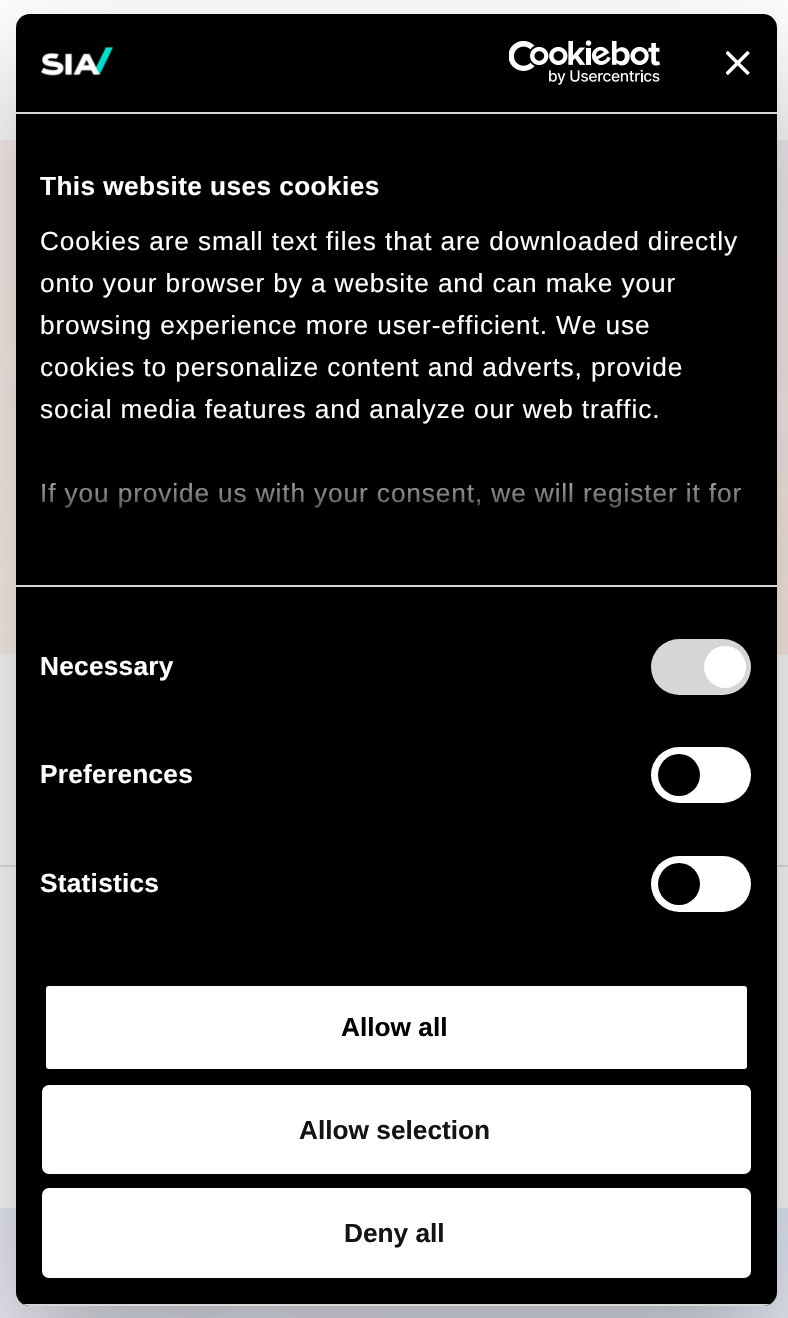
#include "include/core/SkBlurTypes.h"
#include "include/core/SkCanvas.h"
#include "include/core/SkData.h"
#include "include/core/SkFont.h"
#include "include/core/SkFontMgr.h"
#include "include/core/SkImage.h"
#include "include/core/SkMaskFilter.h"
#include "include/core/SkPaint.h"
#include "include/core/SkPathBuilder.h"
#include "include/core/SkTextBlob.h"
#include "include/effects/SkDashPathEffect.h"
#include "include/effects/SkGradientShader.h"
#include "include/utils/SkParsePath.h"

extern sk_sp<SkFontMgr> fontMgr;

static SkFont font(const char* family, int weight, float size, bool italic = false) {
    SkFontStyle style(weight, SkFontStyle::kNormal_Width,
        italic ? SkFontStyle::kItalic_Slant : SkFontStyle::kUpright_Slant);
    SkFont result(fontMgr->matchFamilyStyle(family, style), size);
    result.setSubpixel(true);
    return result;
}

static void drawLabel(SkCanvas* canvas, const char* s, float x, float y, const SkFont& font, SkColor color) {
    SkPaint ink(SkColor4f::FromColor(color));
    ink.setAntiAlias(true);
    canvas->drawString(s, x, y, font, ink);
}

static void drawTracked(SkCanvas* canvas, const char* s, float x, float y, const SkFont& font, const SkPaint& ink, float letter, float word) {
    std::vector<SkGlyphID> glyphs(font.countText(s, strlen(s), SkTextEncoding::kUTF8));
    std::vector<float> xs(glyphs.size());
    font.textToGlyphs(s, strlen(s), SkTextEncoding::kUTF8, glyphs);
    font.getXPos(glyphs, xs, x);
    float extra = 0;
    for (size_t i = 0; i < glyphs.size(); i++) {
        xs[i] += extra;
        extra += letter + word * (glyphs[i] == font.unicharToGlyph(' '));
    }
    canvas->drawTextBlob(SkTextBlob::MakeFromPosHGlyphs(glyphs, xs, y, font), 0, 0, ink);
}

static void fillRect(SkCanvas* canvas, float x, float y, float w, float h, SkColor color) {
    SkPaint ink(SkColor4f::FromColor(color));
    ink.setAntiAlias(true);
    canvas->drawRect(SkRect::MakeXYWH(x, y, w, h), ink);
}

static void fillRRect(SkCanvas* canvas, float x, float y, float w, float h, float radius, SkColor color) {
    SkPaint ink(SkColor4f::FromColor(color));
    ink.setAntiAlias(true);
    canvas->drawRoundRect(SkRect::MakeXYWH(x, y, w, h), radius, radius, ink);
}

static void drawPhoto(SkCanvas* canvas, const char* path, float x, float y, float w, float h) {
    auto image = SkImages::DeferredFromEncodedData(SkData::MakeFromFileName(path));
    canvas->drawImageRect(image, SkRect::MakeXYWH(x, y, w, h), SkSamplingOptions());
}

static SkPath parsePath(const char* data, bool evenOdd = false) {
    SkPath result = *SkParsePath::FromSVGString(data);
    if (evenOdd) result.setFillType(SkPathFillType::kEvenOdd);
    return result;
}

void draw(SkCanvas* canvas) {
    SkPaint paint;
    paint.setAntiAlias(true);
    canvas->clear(0xFFFFFFFF);
    drawPhoto(canvas, "assets/img1.png", 0, 140, 788, 515);
    fillRect(canvas, 0, 865, 788, 2, 0xFFE4E4E4);
    drawPhoto(canvas, "assets/img2.png", 0, 1207, 788, 111);
    paint.setColor(0x4D000000);
    paint.setMaskFilter(SkMaskFilter::MakeBlur(kNormal_SkBlurStyle, 59.5f));
    canvas->drawRoundRect(SkRect::MakeXYWH(16, 70, 761, 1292), 14, 14, paint);
    paint.setMaskFilter(nullptr);
    fillRRect(canvas, 16, 14, 761, 1292, 14, 0xFF000000);
    fillRect(canvas, 16, 112, 761, 2, 0xFFD6D6D6);
    drawPhoto(canvas, "assets/img3.png", 41, 47, 72, 29);
    drawPhoto(canvas, "assets/img4.png", 509, 40, 151, 45);
    drawPhoto(canvas, "assets/img5.png", 726, 51, 24, 24);
    fillRect(canvas, 16, 585, 761, 2, 0xFFD6D6D6);
    SkFont font1 = font("Liberation Sans", 700, 26.25f);
    paint.setColor(0xFFFFFFFF);
    drawTracked(canvas, "This website uses cookies", 40, 195, font1, paint, 0.4f, 0);
    SkFont font2 = font("Liberation Sans", 400, 26.25f);
    drawTracked(canvas, "Cookies are small text files that are downloaded directly", 40, 250, font2, paint, 0.88f, 0);
    drawTracked(canvas, "onto your browser by a website and can make your", 40, 292, font2, paint, 0.88f, 0);
    drawTracked(canvas, "browsing experience more user-efficient. We use", 40, 334, font2, paint, 0.88f, 0);
    drawTracked(canvas, "cookies to personalize content and adverts, provide", 40, 376, font2, paint, 0.88f, 0);
    drawTracked(canvas, "social media features and analyze our web traffic.", 40, 418, font2, paint, 0.88f, 0);
    drawTracked(canvas, "If you provide us with your consent, we will register it for", 40, 502, font2, paint, 0.88f, 0);
    {
        const SkColor colors[] = {0xFF000000, 0xCC000000, 0x00000000};
        const float stops[] = {0, 0.5f, 1};
        const SkPoint ends[] = {{384, 585}, {384, 453}};
        paint.setShader(SkGradientShader::MakeLinear(ends, colors, stops, 3, SkTileMode::kClamp));
        paint.setAlpha(255);
    }
    canvas->drawRect(SkRect::MakeXYWH(42, 483, 699, 25), paint);
    paint.setShader(nullptr);
    paint.setColor(0xFFFFFFFF);
    drawTracked(canvas, "Necessary", 40, 675, font1, paint, 0.25f, 0);
    fillRRect(canvas, 651, 639, 100, 56, 28, 0xFFD6D6D6);
    canvas->drawCircle(725, 667, 21, paint);
    drawTracked(canvas, "Preferences", 40, 783, font1, paint, 0.25f, 0);
    fillRRect(canvas, 651, 747, 100, 56, 28, 0xFFFFFFFF);
    paint.setColor(0xFF000000);
    canvas->drawCircle(679, 775, 21, paint);
    paint.setColor(0xFFFFFFFF);
    drawTracked(canvas, "Statistics", 40, 892, font1, paint, 0.25f, 0);
    fillRRect(canvas, 651, 856, 100, 56, 28, 0xFFFFFFFF);
    paint.setColor(0xFF000000);
    canvas->drawCircle(679, 884, 21, paint);
    canvas->save();
    canvas->clipPath(parsePath("M30 14H763C770.5 14 777 20.5 777 28V1292C777 1299.5 770.5 1306 763 1306H30C22.5 1306 16 1299.5 16 1292V28C16 20.5 22.5 14 30 14Z"), true);
    fillRect(canvas, 16, 1304, 761, 2, 0xFFD6D6D6);
    canvas->restore();
    paint.setColor(0xFFFFFFFF);
    canvas->drawRoundRect(SkRect::MakeXYWH(44, 984, 705, 87), 5, 5, paint);
    paint.setStroke(true);
    paint.setStrokeWidth(4);
    paint.setColor(0xFF000000);
    canvas->drawRoundRect(SkRect::MakeXYWH(44, 984, 705, 87), 5, 5, paint);
    drawLabel(canvas, "Allow all", 341, 1036, font1, 0xFF000000);
    paint.setStroke(false);
    paint.setColor(0xFFFFFFFF);
    canvas->drawRoundRect(SkRect::MakeXYWH(44, 1087, 705, 85), 5, 5, paint);
    paint.setStroke(true);
    canvas->drawRoundRect(SkRect::MakeXYWH(44, 1087, 705, 85), 5, 5, paint);
    drawLabel(canvas, "Allow selection", 299, 1139, font1, 0xFF141414);
    paint.setStroke(false);
    canvas->drawRoundRect(SkRect::MakeXYWH(44, 1190, 705, 86), 5, 5, paint);
    paint.setStroke(true);
    canvas->drawRoundRect(SkRect::MakeXYWH(44, 1190, 705, 86), 5, 5, paint);
    drawLabel(canvas, "Deny all", 344, 1242, font1, 0xFF141414);
}
